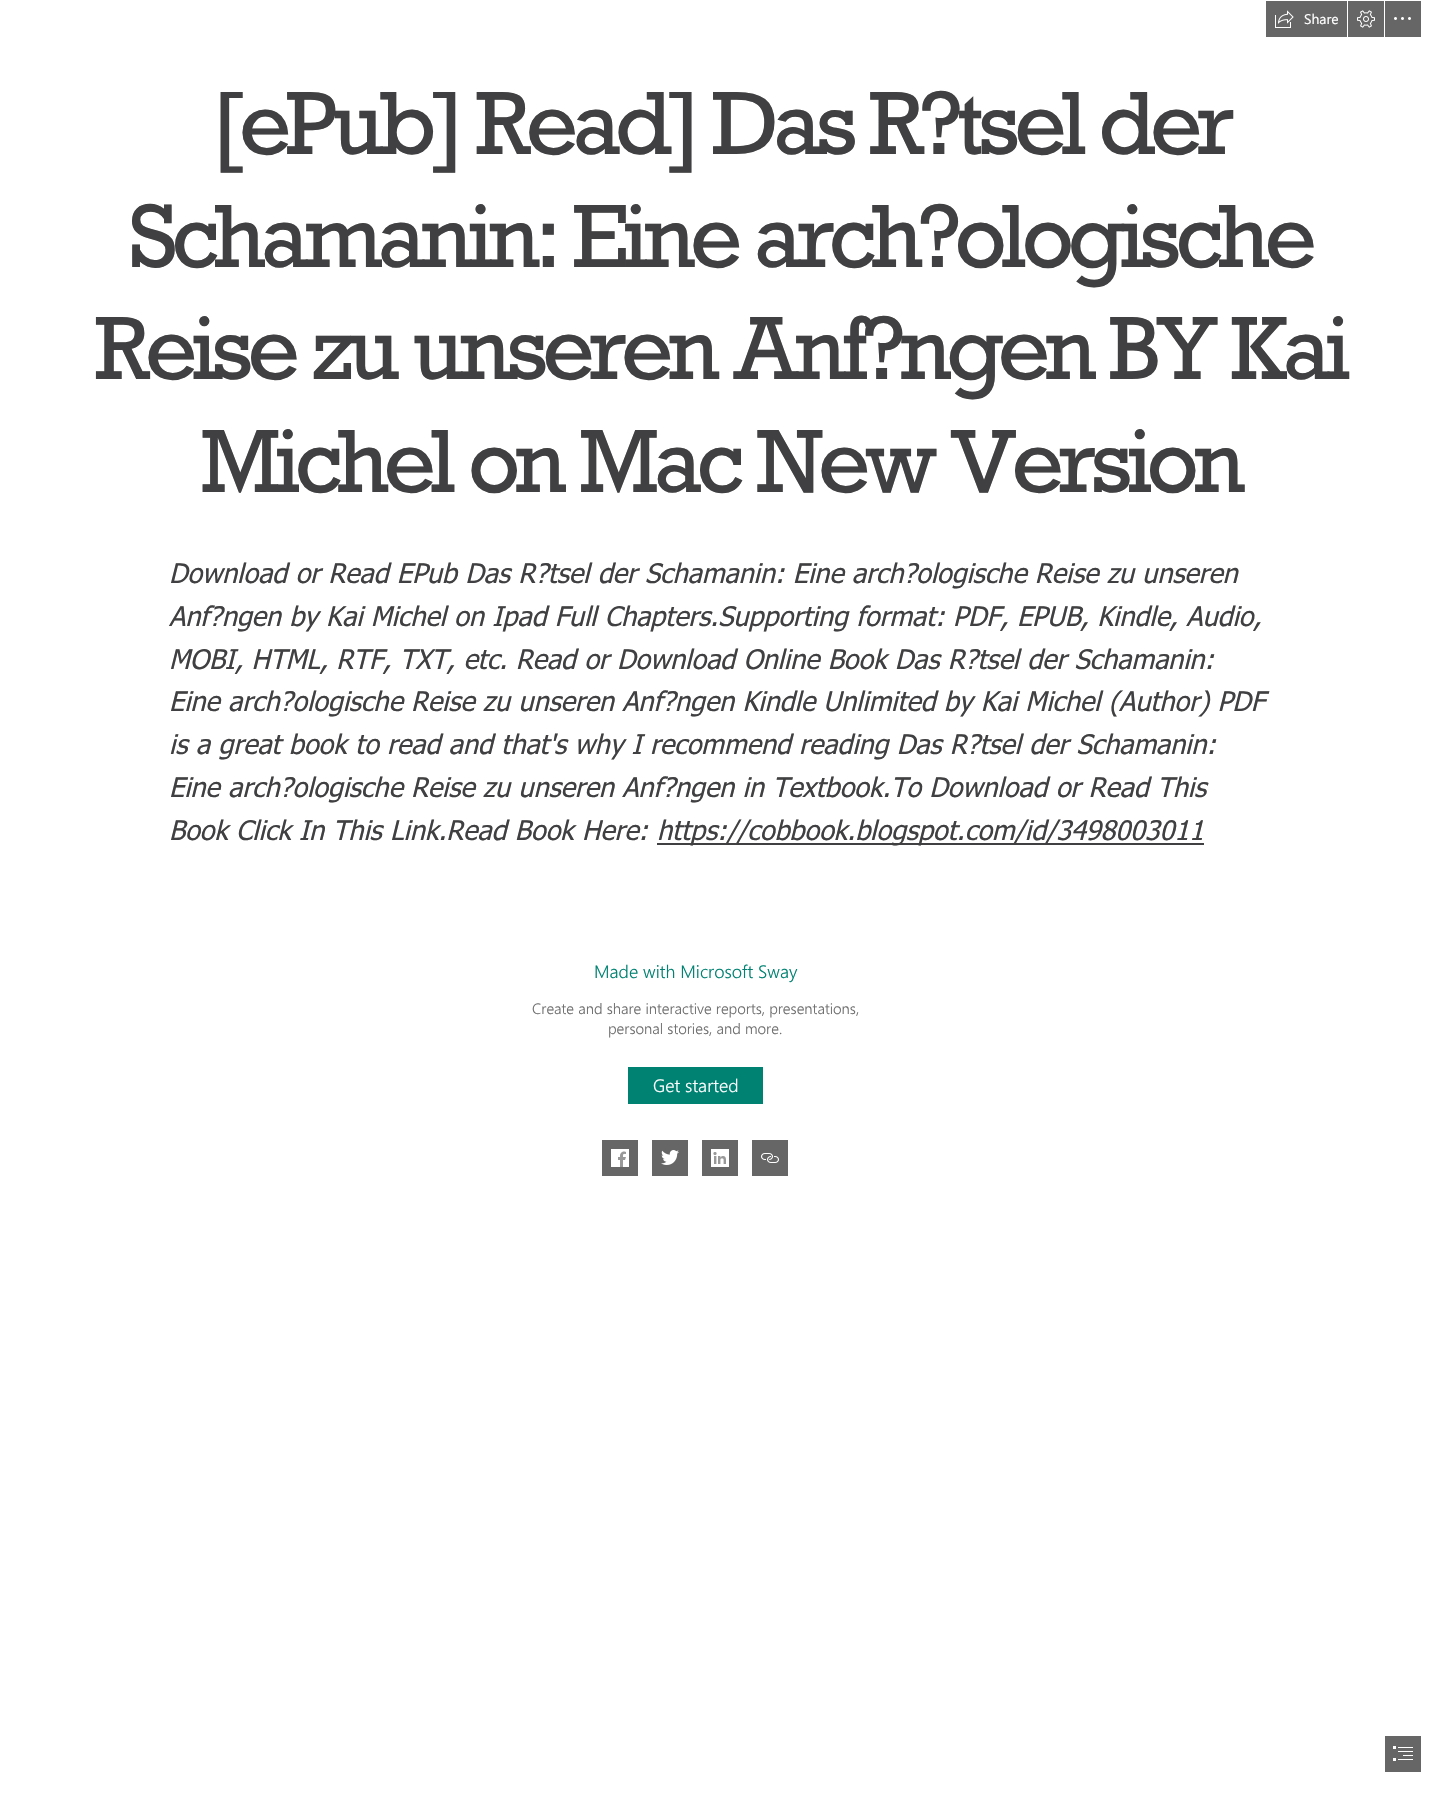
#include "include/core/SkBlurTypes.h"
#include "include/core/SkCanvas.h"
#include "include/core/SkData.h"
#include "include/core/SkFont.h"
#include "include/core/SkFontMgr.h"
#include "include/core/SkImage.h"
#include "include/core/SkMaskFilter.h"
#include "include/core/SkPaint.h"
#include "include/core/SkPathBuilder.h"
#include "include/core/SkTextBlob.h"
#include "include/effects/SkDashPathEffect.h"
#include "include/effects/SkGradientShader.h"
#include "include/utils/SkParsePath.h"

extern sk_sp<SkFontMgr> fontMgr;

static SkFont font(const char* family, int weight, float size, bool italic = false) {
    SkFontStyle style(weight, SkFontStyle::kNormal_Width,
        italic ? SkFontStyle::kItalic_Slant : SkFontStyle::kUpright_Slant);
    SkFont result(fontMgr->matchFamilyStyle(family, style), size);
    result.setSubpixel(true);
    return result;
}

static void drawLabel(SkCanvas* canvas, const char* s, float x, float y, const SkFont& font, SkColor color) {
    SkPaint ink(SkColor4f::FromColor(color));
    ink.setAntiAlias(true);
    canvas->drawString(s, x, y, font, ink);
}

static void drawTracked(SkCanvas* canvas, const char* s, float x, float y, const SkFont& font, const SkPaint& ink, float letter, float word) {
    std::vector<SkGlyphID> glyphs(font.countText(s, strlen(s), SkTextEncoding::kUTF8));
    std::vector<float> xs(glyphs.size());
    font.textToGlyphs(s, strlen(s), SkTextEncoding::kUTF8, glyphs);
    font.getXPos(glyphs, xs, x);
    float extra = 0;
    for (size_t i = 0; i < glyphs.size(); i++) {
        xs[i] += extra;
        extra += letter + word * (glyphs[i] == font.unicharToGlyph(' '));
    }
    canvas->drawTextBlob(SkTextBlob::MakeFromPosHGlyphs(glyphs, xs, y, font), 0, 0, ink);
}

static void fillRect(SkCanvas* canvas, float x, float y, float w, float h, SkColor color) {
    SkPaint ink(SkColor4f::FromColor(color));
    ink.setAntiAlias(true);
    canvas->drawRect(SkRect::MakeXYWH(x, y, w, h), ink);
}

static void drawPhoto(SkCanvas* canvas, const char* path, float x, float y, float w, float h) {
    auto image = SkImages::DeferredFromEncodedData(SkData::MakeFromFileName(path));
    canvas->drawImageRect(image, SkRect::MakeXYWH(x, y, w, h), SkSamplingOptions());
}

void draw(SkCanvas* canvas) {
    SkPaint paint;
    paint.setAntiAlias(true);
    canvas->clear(0xFFFFFFFF);
    fillRect(canvas, 1266, 1, 81, 36, 0xFF666666);
    drawPhoto(canvas, "assets/img1.png", 1275, 10, 19, 18);
    SkFont font1 = font("Segoe UI", 400, 14);
    drawLabel(canvas, "Share", 1304, 24, font1, 0xFFFFFFFF);
    fillRect(canvas, 1348, 1, 36, 36, 0xFF666666);
    drawPhoto(canvas, "assets/img2.png", 1357, 10, 18, 18);
    fillRect(canvas, 1385, 1, 36, 36, 0xFF666666);
    drawPhoto(canvas, "assets/img3.png", 1394, 17, 17, 3);
    SkFont font2 = font("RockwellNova", 400, 84.4f);
    paint.setColor(0xFF403F41);
    drawTracked(canvas, "[ePub] Read] Das R?tsel der", 211, 154, font2, paint, -5.9f, 0);
    drawTracked(canvas, "Schamanin: Eine arch?ologische", 129, 267, font2, paint, -5.9f, 0);
    drawTracked(canvas, "Reise zu unseren Anf?ngen BY Kai", 95, 379, font2, paint, -5.9f, 0);
    drawTracked(canvas, "Michel on Mac New Version", 200, 492, font2, paint, -5.9f, 0);
    SkFont font3 = font("Tahoma", 400, 27, true);
    drawLabel(canvas, "Download or Read EPub Das R?tsel der Schamanin: Eine arch?ologische Reise zu unseren", 169, 583, font3, 0xFF403F41);
    drawLabel(canvas, "Anf?ngen by Kai Michel on Ipad Full Chapters.Supporting format: PDF, EPUB, Kindle, Audio,", 169, 626, font3, 0xFF403F41);
    drawLabel(canvas, "MOBI, HTML, RTF, TXT, etc. Read or Download Online Book Das R?tsel der Schamanin:", 169, 669, font3, 0xFF403F41);
    drawLabel(canvas, "Eine arch?ologische Reise zu unseren Anf?ngen Kindle Unlimited by Kai Michel (Author) PDF", 169, 711, font3, 0xFF403F41);
    drawLabel(canvas, "is a great book to read and that's why I recommend reading Das R?tsel der Schamanin:", 169, 754, font3, 0xFF403F41);
    drawLabel(canvas, "Eine arch?ologische Reise zu unseren Anf?ngen in Textbook.To Download or Read This", 169, 797, font3, 0xFF403F41);
    drawLabel(canvas, "Book Click In This Link.Read Book Here:", 169, 840, font3, 0xFF403F41);
    fillRect(canvas, 657, 843, 547, 2, 0xFF403F41);
    drawLabel(canvas, "https://cobbook.blogspot.com/id/3498003011", 657, 840, font3, 0xFF403F41);
    SkFont font4 = font("Segoe UI", 300, 18);
    drawLabel(canvas, "Made with Microsoft Sway", 594, 978, font4, 0xFF008272);
    SkFont font5 = font("Segoe UI", 300, 15);
    drawLabel(canvas, "Create and share interactive reports, presentations,", 532, 1014, font5, 0xFF6E6E6E);
    drawLabel(canvas, "personal stories, and more.", 608, 1034, font5, 0xFF6E6E6E);
    fillRect(canvas, 628, 1067, 135, 37, 0xFF008272);
    drawLabel(canvas, "Get started", 653, 1092, font4, 0xFFFFFFFF);
    fillRect(canvas, 602, 1140, 36, 36, 0xFF666666);
    fillRect(canvas, 611, 1149, 18, 18, 0xFFFFFFFF);
    drawPhoto(canvas, "assets/img4.png", 618, 1151, 8, 16);
    fillRect(canvas, 652, 1140, 36, 36, 0xFF666666);
    drawPhoto(canvas, "assets/img5.png", 661, 1150, 18, 15);
    fillRect(canvas, 702, 1140, 36, 36, 0xFF666666);
    fillRect(canvas, 711, 1149, 18, 18, 0xFFFFFFFF);
    drawPhoto(canvas, "assets/img6.png", 713, 1152, 13, 12);
    fillRect(canvas, 752, 1140, 36, 36, 0xFF666666);
    drawPhoto(canvas, "assets/img7.png", 761, 1153, 18, 10);
    fillRect(canvas, 1385, 1736, 36, 36, 0xFF666666);
    drawPhoto(canvas, "assets/img8.png", 1393, 1746, 20, 15);
}
